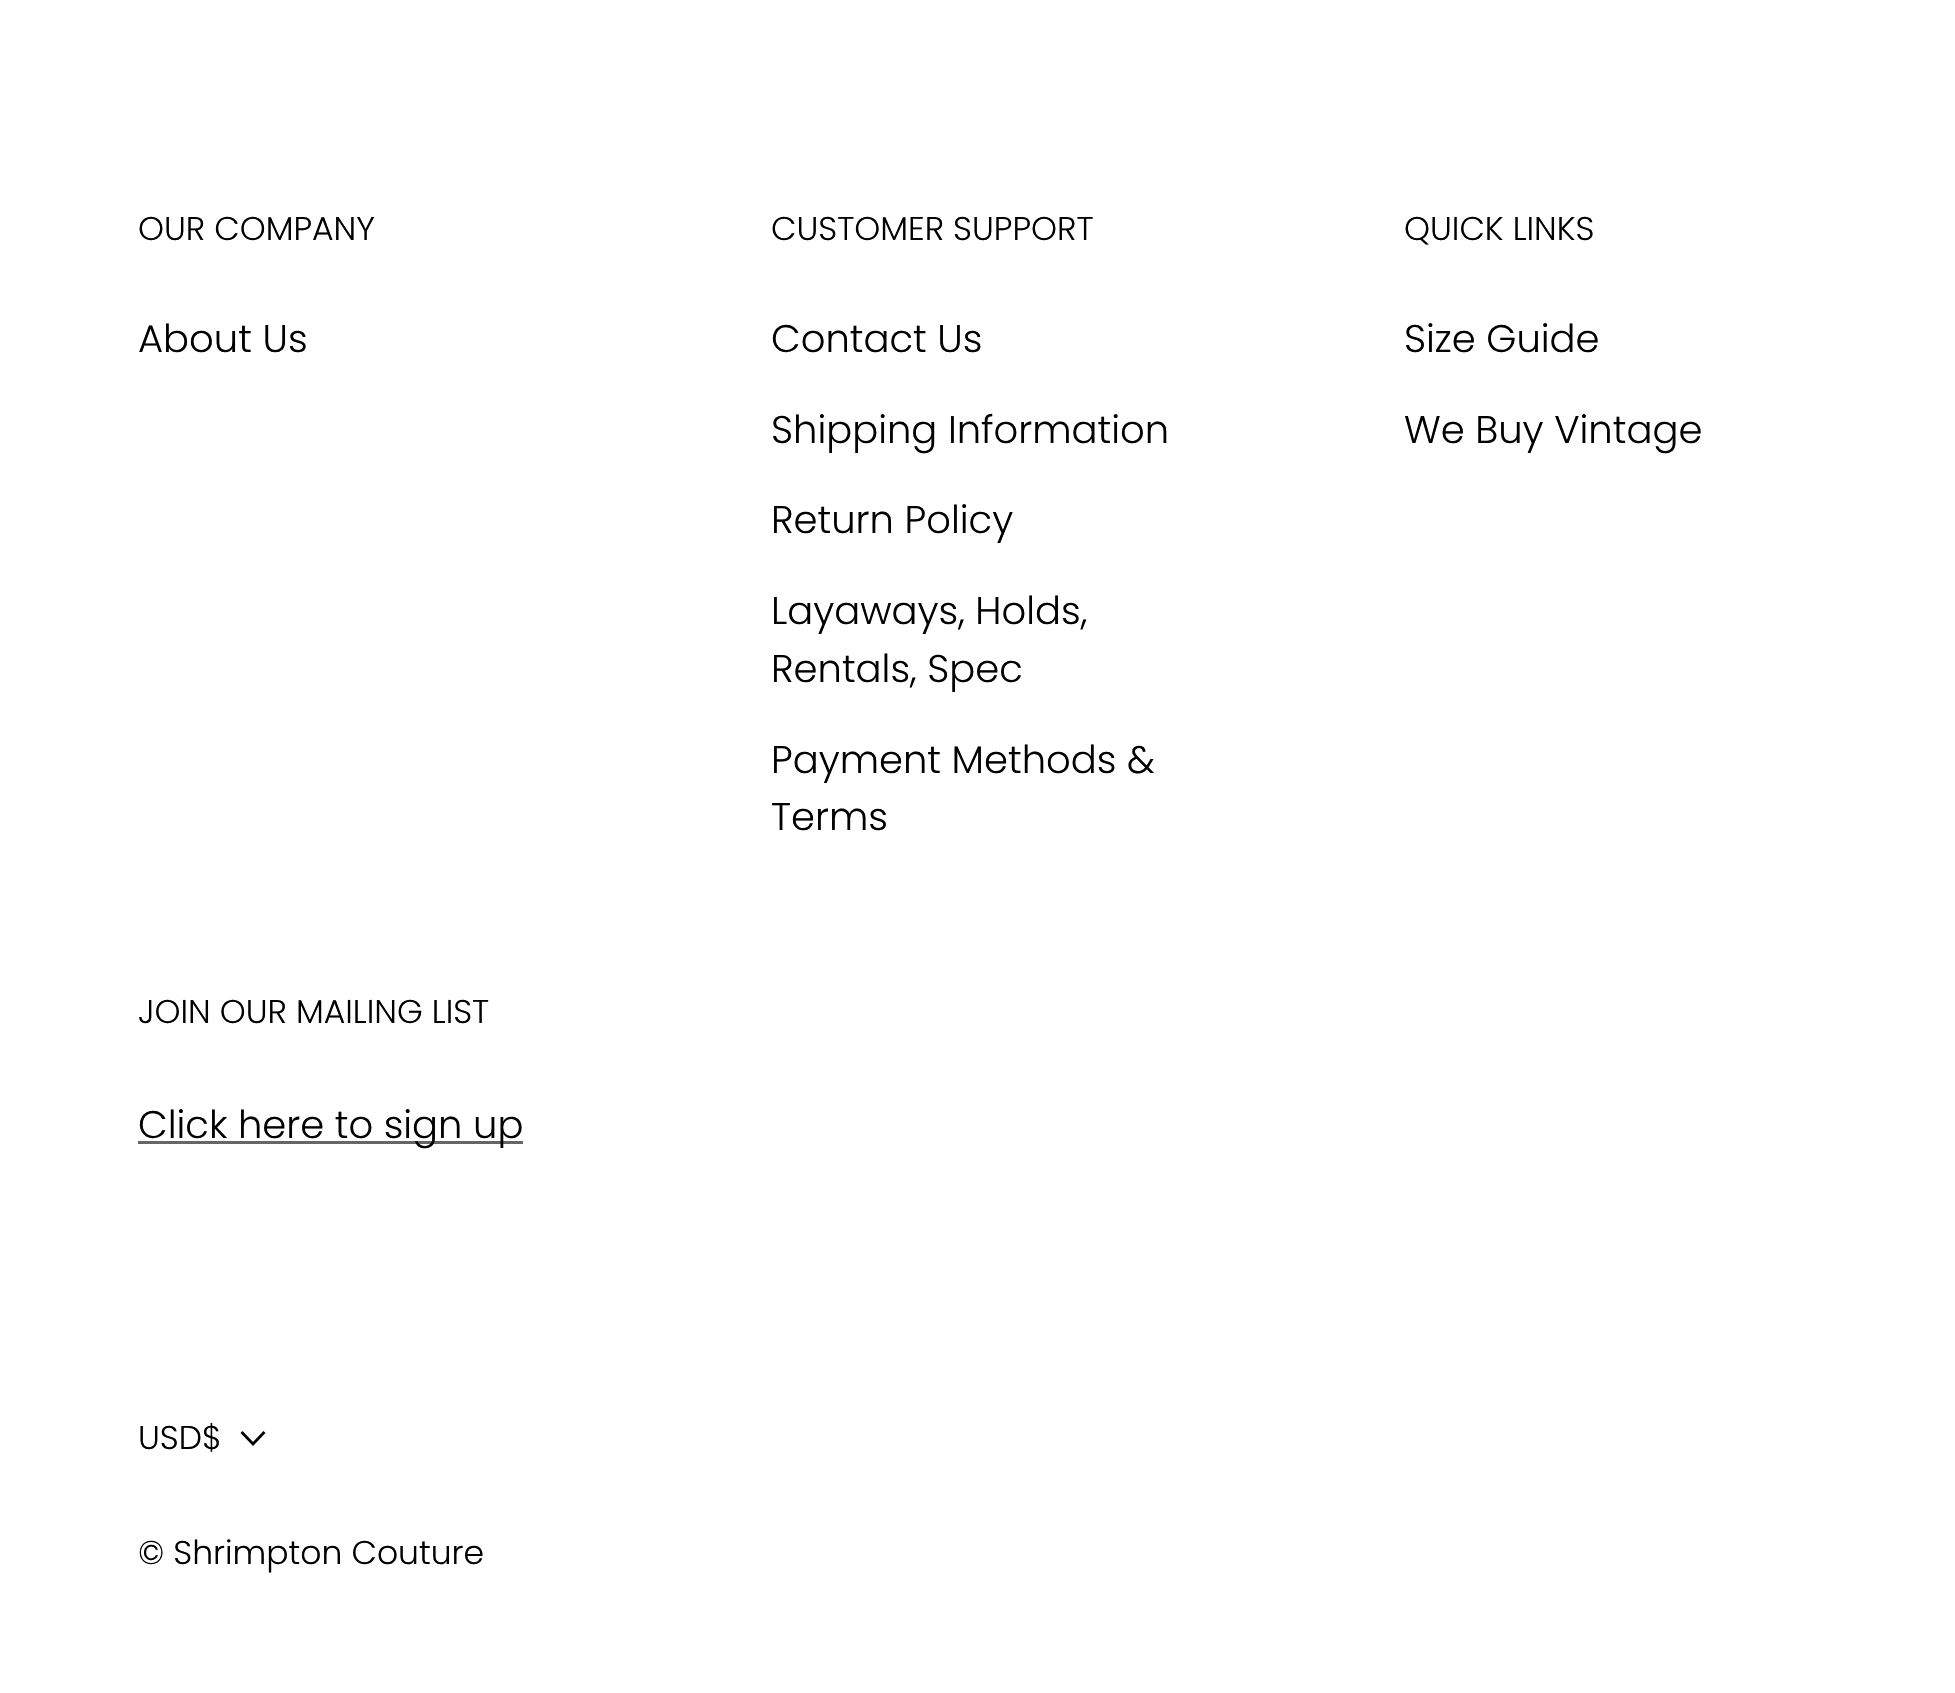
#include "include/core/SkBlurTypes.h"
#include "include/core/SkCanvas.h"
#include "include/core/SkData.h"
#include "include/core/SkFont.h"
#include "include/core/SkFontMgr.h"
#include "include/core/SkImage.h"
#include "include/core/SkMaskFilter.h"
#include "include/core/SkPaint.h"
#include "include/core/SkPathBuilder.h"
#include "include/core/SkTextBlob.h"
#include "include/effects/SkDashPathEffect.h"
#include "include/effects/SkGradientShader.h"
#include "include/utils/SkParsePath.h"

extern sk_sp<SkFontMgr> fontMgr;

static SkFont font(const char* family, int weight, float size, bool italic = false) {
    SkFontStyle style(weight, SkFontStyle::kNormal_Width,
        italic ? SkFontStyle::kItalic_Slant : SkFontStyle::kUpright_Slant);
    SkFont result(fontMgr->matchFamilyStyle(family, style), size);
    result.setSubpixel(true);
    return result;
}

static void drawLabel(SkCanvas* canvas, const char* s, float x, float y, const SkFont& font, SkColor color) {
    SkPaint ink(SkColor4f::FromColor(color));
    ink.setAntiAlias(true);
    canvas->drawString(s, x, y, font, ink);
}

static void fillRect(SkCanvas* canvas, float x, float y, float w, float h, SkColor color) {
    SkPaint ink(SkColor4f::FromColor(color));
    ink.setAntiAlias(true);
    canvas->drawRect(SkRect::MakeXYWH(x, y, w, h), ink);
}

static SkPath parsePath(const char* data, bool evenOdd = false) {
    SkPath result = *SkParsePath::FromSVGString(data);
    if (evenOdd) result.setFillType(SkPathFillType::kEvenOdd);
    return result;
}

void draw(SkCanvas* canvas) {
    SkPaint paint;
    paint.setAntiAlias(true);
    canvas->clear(0xFFFFFFFF);
    SkFont font1 = font("Poppins", 300, 33);
    drawLabel(canvas, "OUR COMPANY", 138, 240, font1, 0xFF000000);
    SkFont font2 = font("Poppins", 300, 38.5f);
    drawLabel(canvas, "About Us", 138, 352, font2, 0xFF000000);
    drawLabel(canvas, "CUSTOMER SUPPORT", 771, 240, font1, 0xFF000000);
    drawLabel(canvas, "Contact Us", 771, 352, font2, 0xFF000000);
    drawLabel(canvas, "Shipping Information", 771, 443, font2, 0xFF000000);
    drawLabel(canvas, "Return Policy", 771, 533, font2, 0xFF000000);
    drawLabel(canvas, "Layaways, Holds,", 771, 624, font2, 0xFF000000);
    drawLabel(canvas, "Rentals, Spec", 771, 682, font2, 0xFF000000);
    drawLabel(canvas, "Payment Methods &", 771, 773, font2, 0xFF000000);
    drawLabel(canvas, "Terms", 771, 830, font2, 0xFF000000);
    drawLabel(canvas, "QUICK LINKS", 1404, 240, font1, 0xFF000000);
    drawLabel(canvas, "Size Guide", 1404, 352, font2, 0xFF000000);
    drawLabel(canvas, "We Buy Vintage", 1404, 443, font2, 0xFF000000);
    drawLabel(canvas, "JOIN OUR MAILING LIST", 138, 1023, font1, 0xFF000000);
    fillRect(canvas, 138, 1141, 385, 3, 0xFF666666);
    drawLabel(canvas, "Click here to sign up", 138, 1138, font2, 0xFF000000);
    drawLabel(canvas, "USD$", 138, 1449, font1, 0xFF000000);
    paint.setStroke(true);
    paint.setStrokeWidth(2.8f);
    paint.setStrokeCap(SkPaint::kSquare_Cap);
    paint.setColor(0xFF000000);
    canvas->drawPath(parsePath("M263.5 1433L253 1444L242.5 1433"), paint);
    drawLabel(canvas, "© Shrimpton Couture", 138, 1564, font1, 0xFF000000);
}
